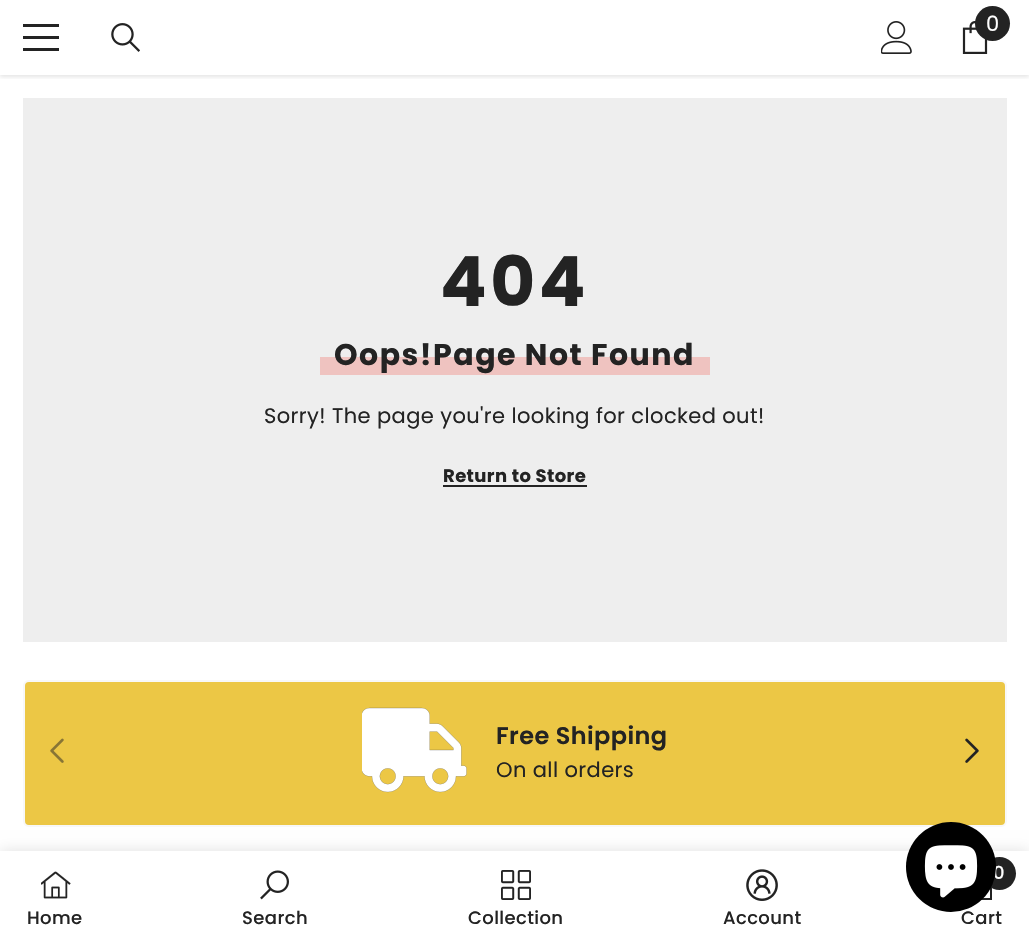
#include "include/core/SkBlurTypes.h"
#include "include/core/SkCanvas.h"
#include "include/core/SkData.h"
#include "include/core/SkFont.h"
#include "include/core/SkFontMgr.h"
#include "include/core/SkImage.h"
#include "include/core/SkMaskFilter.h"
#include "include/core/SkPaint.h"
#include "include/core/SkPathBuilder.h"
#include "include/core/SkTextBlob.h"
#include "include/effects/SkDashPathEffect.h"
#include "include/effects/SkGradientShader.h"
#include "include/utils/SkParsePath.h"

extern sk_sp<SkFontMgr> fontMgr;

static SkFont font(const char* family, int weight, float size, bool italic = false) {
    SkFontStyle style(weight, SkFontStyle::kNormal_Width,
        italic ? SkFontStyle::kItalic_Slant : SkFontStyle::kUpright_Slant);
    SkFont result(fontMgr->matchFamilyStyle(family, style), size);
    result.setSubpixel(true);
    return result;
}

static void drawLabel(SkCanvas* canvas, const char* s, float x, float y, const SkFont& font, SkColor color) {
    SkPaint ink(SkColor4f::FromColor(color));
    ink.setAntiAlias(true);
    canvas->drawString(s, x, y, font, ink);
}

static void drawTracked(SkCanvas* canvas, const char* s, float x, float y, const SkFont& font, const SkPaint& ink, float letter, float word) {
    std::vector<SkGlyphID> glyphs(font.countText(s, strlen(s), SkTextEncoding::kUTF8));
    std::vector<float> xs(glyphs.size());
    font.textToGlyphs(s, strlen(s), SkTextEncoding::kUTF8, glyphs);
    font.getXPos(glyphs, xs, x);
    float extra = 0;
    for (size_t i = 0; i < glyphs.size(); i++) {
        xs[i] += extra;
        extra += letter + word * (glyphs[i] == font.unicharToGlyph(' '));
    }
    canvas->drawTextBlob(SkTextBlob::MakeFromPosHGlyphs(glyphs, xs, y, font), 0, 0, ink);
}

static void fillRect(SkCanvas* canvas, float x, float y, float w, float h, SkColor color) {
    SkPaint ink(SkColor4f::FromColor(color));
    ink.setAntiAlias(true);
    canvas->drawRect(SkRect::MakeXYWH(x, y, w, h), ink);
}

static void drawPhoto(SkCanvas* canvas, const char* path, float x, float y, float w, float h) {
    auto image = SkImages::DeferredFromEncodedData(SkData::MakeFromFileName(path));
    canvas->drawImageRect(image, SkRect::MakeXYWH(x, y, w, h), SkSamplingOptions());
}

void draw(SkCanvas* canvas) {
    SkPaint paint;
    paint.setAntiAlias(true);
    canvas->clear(0xFFFFFFFF);
    canvas->save();
    canvas->clipRect(SkRect::MakeXYWH(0, 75, 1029, 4));
    paint.setColor(0x1A000000);
    paint.setMaskFilter(SkMaskFilter::MakeBlur(kNormal_SkBlurStyle, 2));
    canvas->drawRect(SkRect::MakeXYWH(0, 2, 1029, 75), paint);
    paint.setMaskFilter(nullptr);
    canvas->restore();
    fillRect(canvas, 23, 36, 36, 3, 0xFF232323);
    fillRect(canvas, 23, 24, 36, 3, 0xFF232323);
    fillRect(canvas, 23, 48, 36, 3, 0xFF232323);
    drawPhoto(canvas, "assets/img1.png", 111, 23, 29, 29);
    drawPhoto(canvas, "assets/img2.png", 881, 21, 31, 33);
    drawPhoto(canvas, "assets/img3.png", 962, 21, 26, 33);
    paint.setColor(0xFF232323);
    canvas->drawCircle(992.5f, 23.5f, 17.5f, paint);
    SkFont font1 = font("Poppins", 400, 21);
    drawLabel(canvas, "0", 986, 31, font1, 0xFFFFFFFF);
    fillRect(canvas, 23, 98, 984, 544, 0xFFEEEEEE);
    SkFont font2 = font("Poppins", 700, 69);
    drawTracked(canvas, "404", 440, 306, font2, paint, 3.5f, 0);
    fillRect(canvas, 320, 357, 390, 18, 0xFFEFC3C0);
    SkFont font3 = font("Poppins", 700, 30);
    drawTracked(canvas, "Oops!Page Not Found", 334, 365, font3, paint, 1.5f, 0);
    drawTracked(canvas, "Sorry! The page you're looking for clocked out!", 264, 423, font1, paint, 0.4f, 0);
    SkFont font4 = font("Poppins", 700, 18);
    drawTracked(canvas, "Return to Store", 443, 482, font4, paint, 0.4f, 0);
    fillRect(canvas, 443, 485, 144, 2, 0xFF232323);
    paint.setColor(0xFFECC745);
    canvas->drawRoundRect(SkRect::MakeXYWH(24, 681, 982, 145), 5, 5, paint);
    paint.setStroke(true);
    paint.setStrokeWidth(2);
    paint.setColor(0xFFF8F8F8);
    canvas->drawRoundRect(SkRect::MakeXYWH(24, 681, 982, 145), 5, 5, paint);
    drawPhoto(canvas, "assets/img4.png", 362, 707, 105, 86);
    SkFont font5 = font("Poppins", 600, 24);
    paint.setStroke(false);
    paint.setColor(0xFF232323);
    drawTracked(canvas, "Free Shipping", 496, 744, font5, paint, 0.4f, 0);
    drawTracked(canvas, "On all orders", 496, 777, font1, paint, 0.4f, 0);
    drawPhoto(canvas, "assets/img5.png", 50, 738, 14, 25);
    drawPhoto(canvas, "assets/img6.png", 965, 738, 14, 25);
    paint.setColor(0x1F000000);
    paint.setMaskFilter(SkMaskFilter::MakeBlur(kNormal_SkBlurStyle, 7));
    canvas->drawRect(SkRect::MakeXYWH(0, 851, 1029, 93), paint);
    paint.setMaskFilter(nullptr);
    fillRect(canvas, 0, 851, 1029, 92, 0xFFFFFFFF);
    drawPhoto(canvas, "assets/img7.png", 41, 871, 30, 28);
    SkFont font6 = font("Poppins", 500, 18);
    paint.setColor(0xFF232323);
    drawTracked(canvas, "Home", 27, 924, font6, paint, 0.4f, 0);
    drawPhoto(canvas, "assets/img8.png", 260, 870, 29, 30);
    drawTracked(canvas, "Search", 242, 924, font6, paint, 0.4f, 0);
    drawPhoto(canvas, "assets/img9.png", 501, 870, 30, 30);
    drawTracked(canvas, "Collection", 468, 924, font6, paint, 0.4f, 0);
    drawPhoto(canvas, "assets/img10.png", 746, 869, 32, 32);
    drawTracked(canvas, "Account", 723, 924, font6, paint, 0.4f, 0);
    drawPhoto(canvas, "assets/img11.png", 981, 887, 11, 13);
    canvas->drawCircle(999.5f, 873.5f, 16.5f, paint);
    drawLabel(canvas, "0", 993, 879, font6, 0xFFFFFFFF);
    drawTracked(canvas, "Cart", 961, 924, font6, paint, 0.4f, 0);
    paint.setColor(0xFF000000);
    canvas->drawCircle(951, 867, 45, paint);
    drawPhoto(canvas, "assets/img12.png", 924, 845, 54, 53);
}
